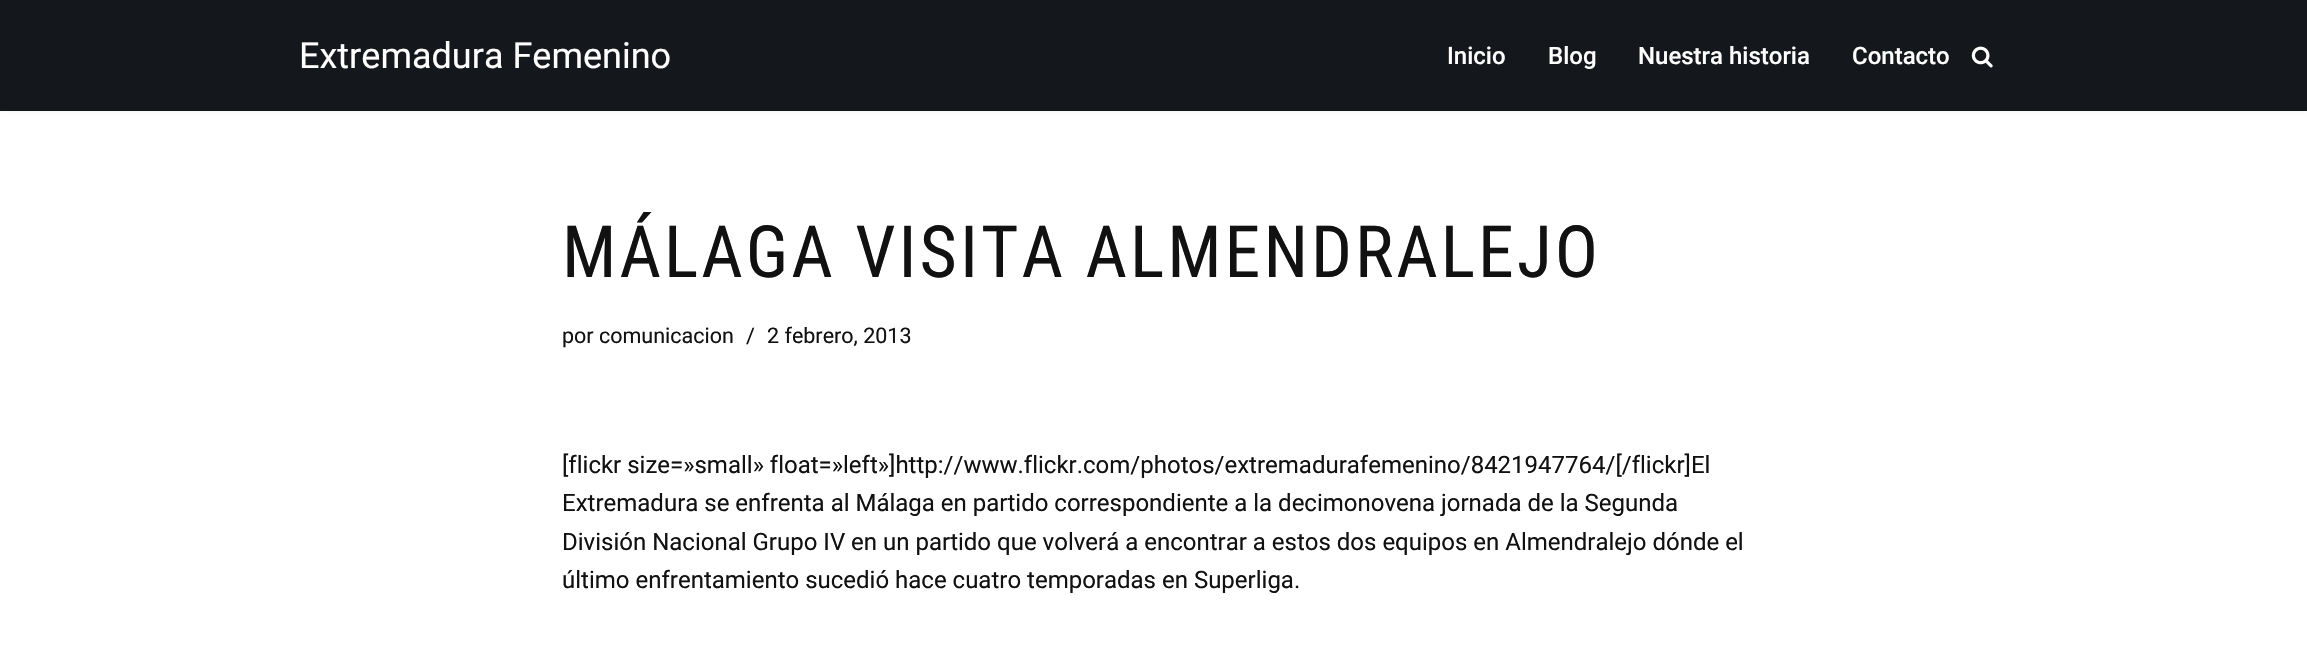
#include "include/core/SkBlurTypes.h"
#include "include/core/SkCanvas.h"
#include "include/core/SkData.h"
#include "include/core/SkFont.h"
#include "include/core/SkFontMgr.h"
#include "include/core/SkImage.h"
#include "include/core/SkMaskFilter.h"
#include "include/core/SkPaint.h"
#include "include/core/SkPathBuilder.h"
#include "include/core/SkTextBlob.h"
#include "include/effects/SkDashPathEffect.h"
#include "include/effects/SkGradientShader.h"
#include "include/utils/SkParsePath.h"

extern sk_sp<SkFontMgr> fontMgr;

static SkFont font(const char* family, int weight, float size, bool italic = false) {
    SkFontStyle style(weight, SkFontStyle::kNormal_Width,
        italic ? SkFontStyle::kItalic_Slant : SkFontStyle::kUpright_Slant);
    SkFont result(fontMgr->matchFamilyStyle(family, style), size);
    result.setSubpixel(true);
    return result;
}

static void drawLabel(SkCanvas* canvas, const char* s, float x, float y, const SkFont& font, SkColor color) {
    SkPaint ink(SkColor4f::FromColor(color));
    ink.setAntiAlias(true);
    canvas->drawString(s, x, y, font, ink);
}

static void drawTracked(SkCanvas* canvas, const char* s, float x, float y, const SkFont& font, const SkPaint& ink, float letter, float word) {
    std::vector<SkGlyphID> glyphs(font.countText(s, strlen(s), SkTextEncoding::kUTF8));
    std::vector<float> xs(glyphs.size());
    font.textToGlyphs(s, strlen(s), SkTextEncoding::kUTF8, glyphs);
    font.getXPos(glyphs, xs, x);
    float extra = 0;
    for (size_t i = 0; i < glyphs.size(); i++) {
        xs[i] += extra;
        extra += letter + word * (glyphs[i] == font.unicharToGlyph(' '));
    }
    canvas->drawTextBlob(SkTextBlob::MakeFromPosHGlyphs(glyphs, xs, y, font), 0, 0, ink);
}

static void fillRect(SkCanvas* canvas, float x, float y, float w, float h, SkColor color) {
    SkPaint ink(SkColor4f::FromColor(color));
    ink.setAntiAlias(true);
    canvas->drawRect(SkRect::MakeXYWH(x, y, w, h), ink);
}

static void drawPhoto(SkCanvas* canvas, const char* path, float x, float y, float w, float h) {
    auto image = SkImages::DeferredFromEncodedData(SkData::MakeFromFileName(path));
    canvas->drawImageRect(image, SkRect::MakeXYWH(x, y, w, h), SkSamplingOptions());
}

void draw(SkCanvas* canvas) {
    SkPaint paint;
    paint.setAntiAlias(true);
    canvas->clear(0xFFFFFFFF);
    paint.setColor(0x1A000000);
    paint.setMaskFilter(SkMaskFilter::MakeBlur(kNormal_SkBlurStyle, 2));
    canvas->drawRect(SkRect::MakeXYWH(0, -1, 2307, 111), paint);
    paint.setMaskFilter(nullptr);
    fillRect(canvas, 0, 0, 2307, 111, 0xFF14171C);
    SkFont font1 = font("Roboto", 400, 36);
    drawLabel(canvas, "Extremadura Femenino", 299, 68, font1, 0xFFFFFFFF);
    SkFont font2 = font("Roboto", 500, 24);
    drawLabel(canvas, "Inicio", 1447, 64, font2, 0xFFFFFFFF);
    drawLabel(canvas, "Blog", 1548, 64, font2, 0xFFFFFFFF);
    drawLabel(canvas, "Nuestra historia", 1638, 64, font2, 0xFFFFFFFF);
    drawLabel(canvas, "Contacto", 1852, 64, font2, 0xFFFFFFFF);
    drawPhoto(canvas, "assets/img1.png", 1971, 46, 22, 22);
    SkFont font3 = font("Roboto Condensed", 400, 72);
    paint.setColor(0xFF111111);
    drawTracked(canvas, "MÁLAGA VISITA ALMENDRALEJO", 562, 277, font3, paint, 3, 0);
    SkFont font4 = font("Roboto", 400, 21.5f);
    drawLabel(canvas, "por comunicacion", 562, 343, font4, 0xFF111111);
    drawLabel(canvas, "/", 746, 343, font4, 0xFF111111);
    drawLabel(canvas, "2 febrero, 2013", 767, 343, font4, 0xFF111111);
    SkFont font5 = font("Roboto", 400, 24);
    drawLabel(canvas, "[flickr size=»small» float=»left»]http://www.flickr.com/photos/extremadurafemenino/8421947764/[/flickr]El", 562, 473, font5, 0xFF111111);
    drawLabel(canvas, "Extremadura se enfrenta al Málaga en partido correspondiente a la decimonovena jornada de la Segunda", 562, 511, font5, 0xFF111111);
    drawLabel(canvas, "División Nacional Grupo IV en un partido que volverá a encontrar a estos dos equipos en Almendralejo dónde el", 562, 550, font5, 0xFF111111);
    drawLabel(canvas, "último enfrentamiento sucedió hace cuatro temporadas en Superliga.", 562, 588, font5, 0xFF111111);
}
